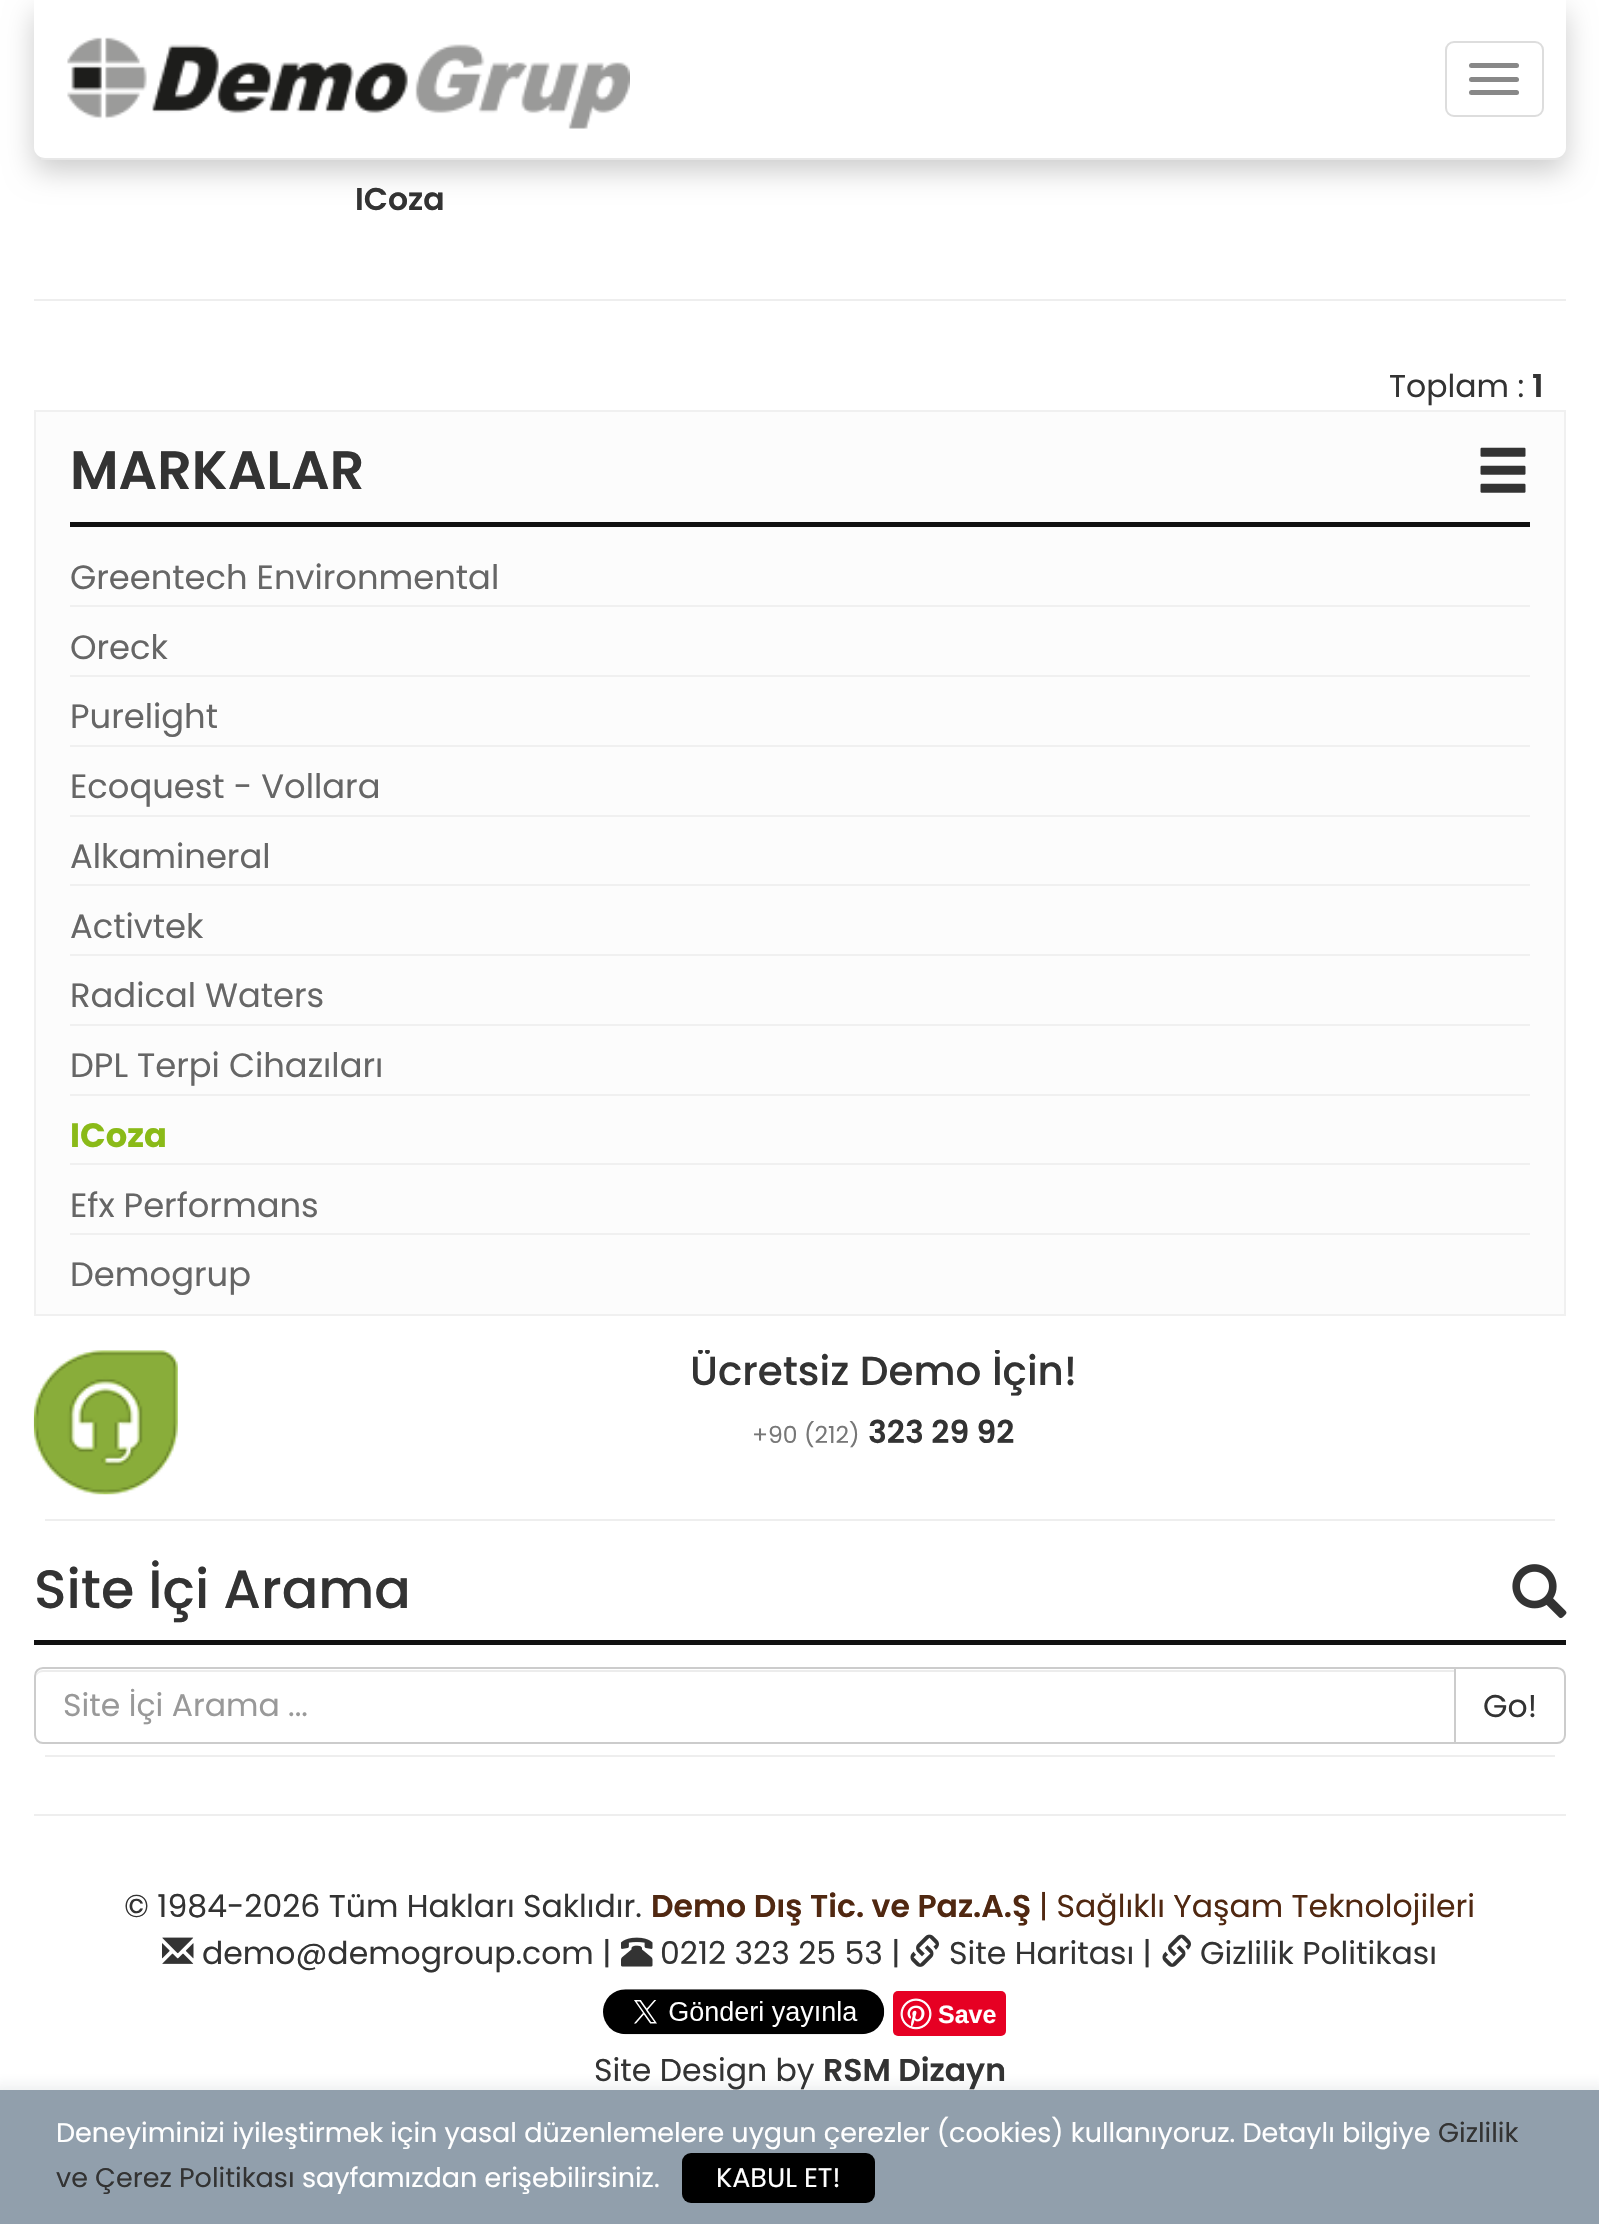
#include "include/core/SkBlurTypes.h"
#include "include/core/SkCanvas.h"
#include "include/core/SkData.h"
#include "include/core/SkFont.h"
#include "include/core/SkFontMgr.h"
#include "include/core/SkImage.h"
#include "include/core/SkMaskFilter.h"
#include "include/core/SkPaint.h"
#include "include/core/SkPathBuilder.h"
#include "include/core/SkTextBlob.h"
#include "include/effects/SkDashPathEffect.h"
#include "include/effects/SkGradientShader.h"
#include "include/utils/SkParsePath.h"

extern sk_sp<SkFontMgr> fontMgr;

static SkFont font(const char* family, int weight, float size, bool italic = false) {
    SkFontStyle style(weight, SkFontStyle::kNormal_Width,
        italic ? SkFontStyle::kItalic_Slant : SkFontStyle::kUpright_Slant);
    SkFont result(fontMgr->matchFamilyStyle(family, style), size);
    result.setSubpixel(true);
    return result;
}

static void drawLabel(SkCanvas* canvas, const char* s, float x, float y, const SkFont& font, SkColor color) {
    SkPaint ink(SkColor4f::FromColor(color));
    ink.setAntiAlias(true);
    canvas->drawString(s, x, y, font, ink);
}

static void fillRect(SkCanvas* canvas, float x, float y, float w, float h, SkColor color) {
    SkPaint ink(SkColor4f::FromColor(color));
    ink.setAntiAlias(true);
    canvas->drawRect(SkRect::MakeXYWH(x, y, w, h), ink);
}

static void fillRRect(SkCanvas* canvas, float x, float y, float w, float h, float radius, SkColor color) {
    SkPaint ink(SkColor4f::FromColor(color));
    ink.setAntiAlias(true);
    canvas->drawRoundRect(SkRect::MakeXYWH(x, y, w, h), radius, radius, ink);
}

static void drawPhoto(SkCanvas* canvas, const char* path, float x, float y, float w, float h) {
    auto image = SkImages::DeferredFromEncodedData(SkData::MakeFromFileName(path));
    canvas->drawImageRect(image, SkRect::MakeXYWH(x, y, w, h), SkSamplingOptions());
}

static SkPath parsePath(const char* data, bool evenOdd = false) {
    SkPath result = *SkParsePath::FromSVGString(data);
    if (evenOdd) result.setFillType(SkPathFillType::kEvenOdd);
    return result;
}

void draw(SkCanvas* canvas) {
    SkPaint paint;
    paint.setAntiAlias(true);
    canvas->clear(0xFFFFFFFF);
    paint.setColor(0x33000000);
    paint.setMaskFilter(SkMaskFilter::MakeBlur(kNormal_SkBlurStyle, 14.5f));
    canvas->drawRoundRect(SkRect::MakeXYWH(34, 11, 1532, 160), 11, 11, paint);
    paint.setMaskFilter(nullptr);
    paint.setColor(0xFFFFFFFF);
    canvas->drawPath(parsePath("M34 0H1566V148C1566 153 1561 158 1555 158H45C39 158 34 153 34 148Z"), paint);
    fillRect(canvas, 41, 158, 1521, 2, 0xFFE7E7E7);
    drawPhoto(canvas, "assets/img1.png", 67, 37, 563, 92);
    paint.setStroke(true);
    paint.setStrokeWidth(2);
    paint.setColor(0xFFDDDDDD);
    canvas->drawRoundRect(SkRect::MakeXYWH(1446, 42, 97, 74), 8, 8, paint);
    fillRRect(canvas, 1469, 63, 50, 5, 2.5f, 0xFF888888);
    fillRRect(canvas, 1469, 77, 50, 5, 2.5f, 0xFF888888);
    fillRRect(canvas, 1469, 90, 50, 5, 2.5f, 0xFF888888);
    SkFont font1 = font("Poppins", 600, 31.5f);
    drawLabel(canvas, "ICoza", 355, 210, font1, 0xFF333333);
    fillRect(canvas, 34, 299, 1532, 2, 0xFFEEEEEE);
    SkFont font2 = font("Poppins", 400, 31.5f);
    drawLabel(canvas, "Toplam :", 1389, 397, font2, 0xFF333333);
    drawLabel(canvas, "1", 1532, 397, font1, 0xFF333333);
    paint.setStroke(false);
    paint.setColor(0xFFFCFCFC);
    canvas->drawRect(SkRect::MakeXYWH(35, 411, 1530, 904), paint);
    paint.setStroke(true);
    paint.setColor(0xFFF0F0F0);
    canvas->drawRect(SkRect::MakeXYWH(35, 411, 1530, 904), paint);
    fillRect(canvas, 70, 522, 1460, 5, 0xFF111111);
    SkFont font3 = font("Poppins", 600, 54);
    drawLabel(canvas, "MARKALAR", 70, 489, font3, 0xFF333333);
    drawPhoto(canvas, "assets/img2.png", 1480, 447, 46, 46);
    fillRect(canvas, 70, 605, 1460, 2, 0xFFF0F0F0);
    SkFont font4 = font("Poppins", 400, 33.75f);
    drawLabel(canvas, "Greentech Environmental", 70, 589, font4, 0xFF666666);
    fillRect(canvas, 70, 675, 1460, 2, 0xFFF0F0F0);
    drawLabel(canvas, "Oreck", 70, 659, font4, 0xFF666666);
    fillRect(canvas, 70, 745, 1460, 2, 0xFFF0F0F0);
    drawLabel(canvas, "Purelight", 70, 728, font4, 0xFF666666);
    fillRect(canvas, 70, 815, 1460, 2, 0xFFF0F0F0);
    drawLabel(canvas, "Ecoquest - Vollara", 70, 798, font4, 0xFF666666);
    fillRect(canvas, 70, 884, 1460, 2, 0xFFF0F0F0);
    drawLabel(canvas, "Alkamineral", 70, 868, font4, 0xFF666666);
    fillRect(canvas, 70, 954, 1460, 2, 0xFFF0F0F0);
    drawLabel(canvas, "Activtek", 70, 938, font4, 0xFF666666);
    fillRect(canvas, 70, 1024, 1460, 2, 0xFFF0F0F0);
    drawLabel(canvas, "Radical Waters", 70, 1007, font4, 0xFF666666);
    fillRect(canvas, 70, 1094, 1460, 2, 0xFFF0F0F0);
    drawLabel(canvas, "DPL Terpi Cihazıları", 70, 1077, font4, 0xFF666666);
    fillRect(canvas, 70, 1163, 1460, 2, 0xFFF0F0F0);
    SkFont font5 = font("Poppins", 700, 33.75f);
    drawLabel(canvas, "ICoza", 70, 1147, font5, 0xFF8ABA18);
    fillRect(canvas, 70, 1233, 1460, 2, 0xFFF0F0F0);
    drawLabel(canvas, "Efx Performans", 70, 1217, font4, 0xFF666666);
    drawLabel(canvas, "Demogrup", 70, 1286, font4, 0xFF666666);
    drawPhoto(canvas, "assets/img3.png", 33, 1350, 145, 145);
    canvas->save();
    canvas->clipRect(SkRect::MakeXYWH(200, 1350, 1366, 144));
    SkFont font6 = font("Poppins", 500, 40.5f);
    drawLabel(canvas, "Ücretsiz Demo İçin!", 690, 1385, font6, 0xFF333333);
    canvas->restore();
    SkFont font7 = font("Poppins", 400, 23.5f);
    drawLabel(canvas, "+90 (212)", 752, 1443, font7, 0xFF777777);
    drawLabel(canvas, "323 29 92", 868, 1443, font1, 0xFF333333);
    fillRect(canvas, 45, 1519, 1510, 2, 0xFFEEEEEE);
    fillRect(canvas, 34, 1640, 1532, 5, 0xFF111111);
    SkFont font8 = font("Poppins", 500, 54);
    drawLabel(canvas, "Site İçi Arama", 34, 1608, font8, 0xFF333333);
    drawPhoto(canvas, "assets/img4.png", 1512, 1564, 55, 55);
    paint.setStroke(false);
    paint.setColor(0xFFECECEC);
    canvas->drawPath(parsePath("M43 1672H1454V1670H43C38 1670 36 1674 36 1678C36 1675 39 1672 43 1672Z"), paint);
    paint.setStroke(true);
    paint.setColor(0xFFCCCCCC);
    canvas->drawPath(parsePath("M43 1668H1455V1743H43C38.5 1743 35 1739.5 35 1735V1676C35 1671.5 38.5 1668 43 1668Z"), paint);
    drawLabel(canvas, "Site İçi Arama ...", 63, 1716, font2, 0xFF999999);
    paint.setStroke(false);
    paint.setColor(0xFFFFFFFF);
    canvas->drawPath(parsePath("M1455 1668H1557C1561.5 1668 1565 1671.5 1565 1676V1735C1565 1739.5 1561.5 1743 1557 1743H1455Z"), paint);
    paint.setStroke(true);
    paint.setColor(0xFFCCCCCC);
    canvas->drawPath(parsePath("M1455 1668H1557C1561.5 1668 1565 1671.5 1565 1676V1735C1565 1739.5 1561.5 1743 1557 1743H1455Z"), paint);
    drawLabel(canvas, "Go!", 1483, 1717, font2, 0xFF333333);
    fillRect(canvas, 45, 1755, 1510, 2, 0xFFEEEEEE);
    fillRect(canvas, 34, 1814, 1532, 2, 0xFFEEEEEE);
    drawLabel(canvas, "© 1984-2026 Tüm Hakları Saklıdır.", 124, 1917, font2, 0xFF333333);
    drawLabel(canvas, "Demo Dış Tic. ve Paz.A.Ş", 651, 1917, font1, 0xFF502811);
    drawLabel(canvas, "| Sağlıklı Yaşam Teknolojileri", 1039, 1917, font2, 0xFF502811);
    drawPhoto(canvas, "assets/img5.png", 162, 1937, 32, 27);
    drawLabel(canvas, "demo@demogroup.com |", 202, 1964, font2, 0xFF333333);
    drawPhoto(canvas, "assets/img6.png", 621, 1937, 32, 30);
    drawLabel(canvas, "0212 323 25 53 |", 660, 1964, font2, 0xFF333333);
    drawPhoto(canvas, "assets/img7.png", 910, 1934, 29, 33);
    drawLabel(canvas, "Site Haritası |", 949, 1964, font2, 0xFF333333);
    drawPhoto(canvas, "assets/img7.png", 1162, 1934, 29, 33);
    drawLabel(canvas, "Gizlilik Politikası", 1200, 1964, font2, 0xFF333333);
    drawPhoto(canvas, "assets/img8.png", 603, 1989, 282, 46);
    fillRRect(canvas, 893, 1991, 113, 45, 5, 0xFFE60023);
    drawPhoto(canvas, "assets/img9.png", 900, 1998, 32, 32);
    SkFont font9 = font("Liberation Sans", 700, 25);
    drawLabel(canvas, "Save", 938, 2023, font9, 0xFFFFFFFF);
    drawLabel(canvas, "Site Design by", 594, 2081, font2, 0xFF333333);
    drawLabel(canvas, "RSM Dizayn", 823, 2081, font1, 0xFF333333);
    paint.setStroke(false);
    paint.setColor(0x17253342);
    paint.setMaskFilter(SkMaskFilter::MakeBlur(kNormal_SkBlurStyle, 7));
    canvas->drawRect(SkRect::MakeXYWH(-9, 2086, 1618, 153), paint);
    paint.setMaskFilter(nullptr);
    fillRect(canvas, 0, 2090, 1599, 134, 0xFF919FAC);
    SkFont font10 = font("Poppins", 400, 27);
    drawLabel(canvas, "Deneyiminizi iyileştirmek için yasal düzenlemelere uygun çerezler (cookies) kullanıyoruz. Detaylı bilgiye", 56, 2142, font10, 0xFFFFFFFF);
    drawLabel(canvas, "Gizlilik", 1438, 2142, font10, 0xFF333333);
    drawLabel(canvas, "ve Çerez Politikası", 56, 2187, font10, 0xFF333333);
    drawLabel(canvas, "sayfamızdan erişebilirsiniz.", 302, 2187, font10, 0xFFFFFFFF);
    fillRRect(canvas, 682, 2153, 193, 50, 9, 0xFF000000);
    drawLabel(canvas, "KABUL ET!", 716, 2187, font10, 0xFFFFFFFF);
}
